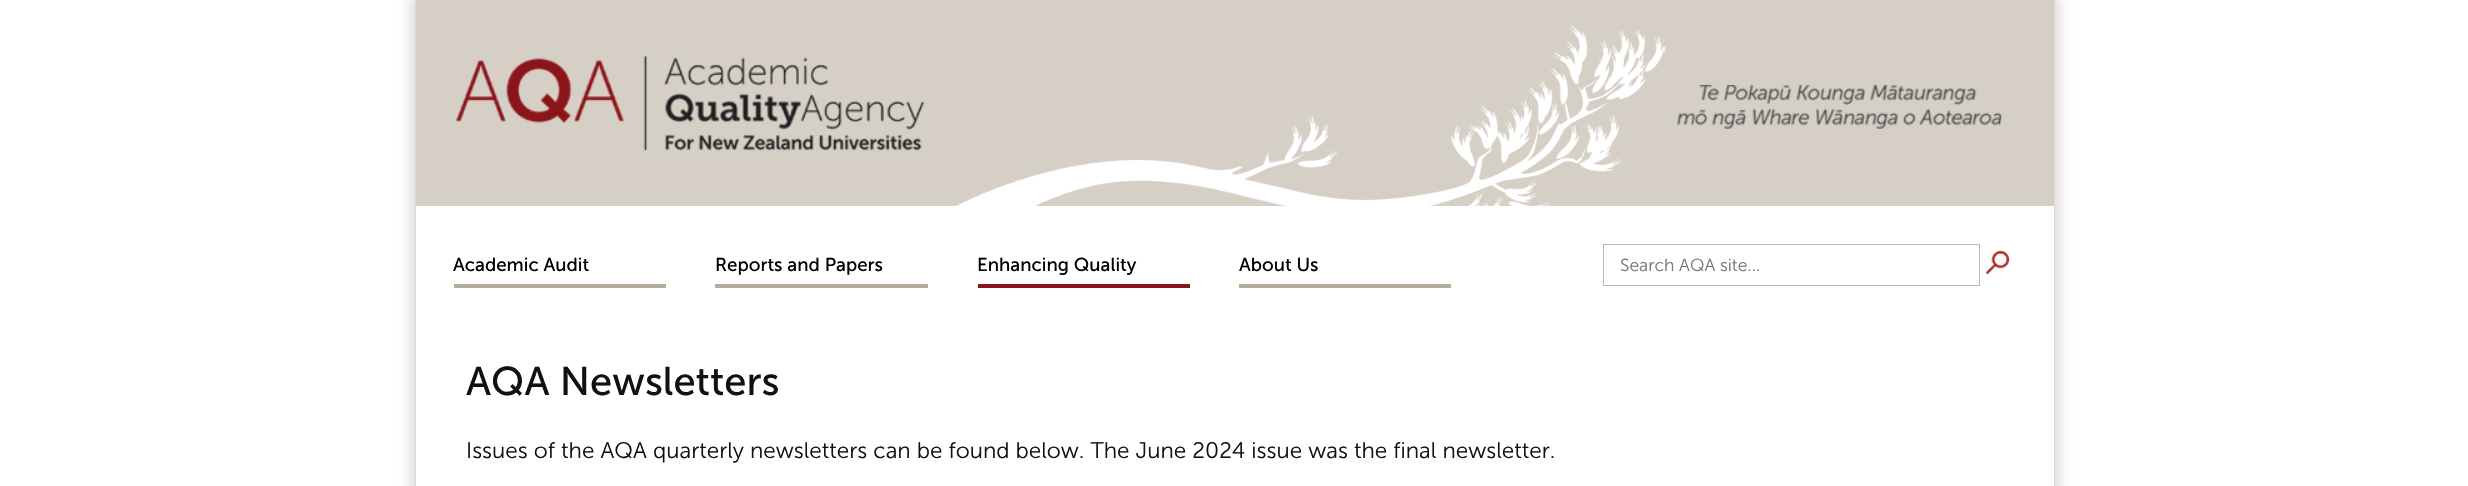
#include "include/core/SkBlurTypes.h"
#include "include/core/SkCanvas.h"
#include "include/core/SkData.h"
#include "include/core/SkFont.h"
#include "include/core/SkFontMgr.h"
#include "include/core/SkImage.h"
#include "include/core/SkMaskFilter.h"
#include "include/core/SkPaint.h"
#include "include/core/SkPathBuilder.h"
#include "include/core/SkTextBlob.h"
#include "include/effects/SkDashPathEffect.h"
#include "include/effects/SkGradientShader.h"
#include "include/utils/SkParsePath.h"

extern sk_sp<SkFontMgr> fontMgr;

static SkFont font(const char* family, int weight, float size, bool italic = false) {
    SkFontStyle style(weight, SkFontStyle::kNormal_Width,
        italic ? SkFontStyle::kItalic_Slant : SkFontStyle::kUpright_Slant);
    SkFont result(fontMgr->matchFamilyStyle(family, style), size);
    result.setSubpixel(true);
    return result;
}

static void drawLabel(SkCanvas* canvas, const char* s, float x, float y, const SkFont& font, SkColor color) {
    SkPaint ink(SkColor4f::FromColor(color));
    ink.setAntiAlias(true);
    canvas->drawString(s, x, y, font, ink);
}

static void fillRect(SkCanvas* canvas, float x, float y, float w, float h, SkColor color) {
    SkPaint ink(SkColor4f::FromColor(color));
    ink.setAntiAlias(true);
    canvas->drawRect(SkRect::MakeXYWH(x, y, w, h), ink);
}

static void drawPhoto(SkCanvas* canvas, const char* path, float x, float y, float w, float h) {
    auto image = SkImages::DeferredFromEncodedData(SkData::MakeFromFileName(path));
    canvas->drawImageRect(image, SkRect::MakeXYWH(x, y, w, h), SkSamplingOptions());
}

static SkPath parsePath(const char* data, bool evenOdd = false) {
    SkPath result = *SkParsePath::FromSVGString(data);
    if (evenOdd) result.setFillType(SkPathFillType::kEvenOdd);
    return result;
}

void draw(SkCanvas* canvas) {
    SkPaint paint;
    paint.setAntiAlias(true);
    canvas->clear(0xFFFFFFFF);
    canvas->save();
    canvas->clipPath(parsePath("M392 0H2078V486H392ZM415 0H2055V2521H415Z", true), true);
    paint.setColor(0xFFDCD9D4);
    paint.setMaskFilter(SkMaskFilter::MakeBlur(kNormal_SkBlurStyle, 6));
    canvas->drawRect(SkRect::MakeXYWH(411, -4, 1648, 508), paint);
    paint.setMaskFilter(nullptr);
    canvas->restore();
    fillRect(canvas, 2054, 0, 1, 486, 0xFFDCD9D4);
    fillRect(canvas, 415, 0, 1, 486, 0xFFDCD9D4);
    fillRect(canvas, 416, 0, 1638, 206, 0xFFD6CFC6);
    drawPhoto(canvas, "assets/img1.png", 456, 56, 468, 95);
    drawPhoto(canvas, "assets/img2.png", 955, 25, 711, 181);
    drawPhoto(canvas, "assets/img3.png", 1677, 84, 325, 45);
    fillRect(canvas, 454, 284, 212, 4, 0xFFB6AC9C);
    SkFont font1 = font("Museo Sans", 400, 18.75f);
    drawLabel(canvas, "Academic Audit", 453, 271, font1, 0xFF000000);
    fillRect(canvas, 715, 284, 213, 4, 0xFFB6AC9C);
    drawLabel(canvas, "Reports and Papers", 715, 271, font1, 0xFF000000);
    fillRect(canvas, 978, 284, 212, 4, 0xFF87161F);
    drawLabel(canvas, "Enhancing Quality", 977, 271, font1, 0xFF000000);
    fillRect(canvas, 1239, 284, 212, 4, 0xFFB6AC9C);
    drawLabel(canvas, "About Us", 1239, 271, font1, 0xFF000000);
    paint.setStroke(true);
    paint.setStrokeWidth(1);
    paint.setColor(0xFFB9B9B9);
    canvas->drawRect(SkRect::MakeXYWH(1603.5f, 244.5f, 376, 41), paint);
    SkFont font2 = font("Museo Sans", 300, 17.5f);
    drawLabel(canvas, "Search AQA site...", 1620, 271, font2, 0xFF757575);
    drawPhoto(canvas, "assets/img4.png", 1986, 250, 24, 24);
    SkFont font3 = font("Museo Sans", 400, 40);
    drawLabel(canvas, "AQA Newsletters", 466, 395, font3, 0xFF111111);
    SkFont font4 = font("Museo Sans", 300, 22.5f);
    drawLabel(canvas, "Issues of the AQA quarterly newsletters can be found below. The June 2024 issue was the final newsletter.", 466, 458, font4, 0xFF111111);
}
